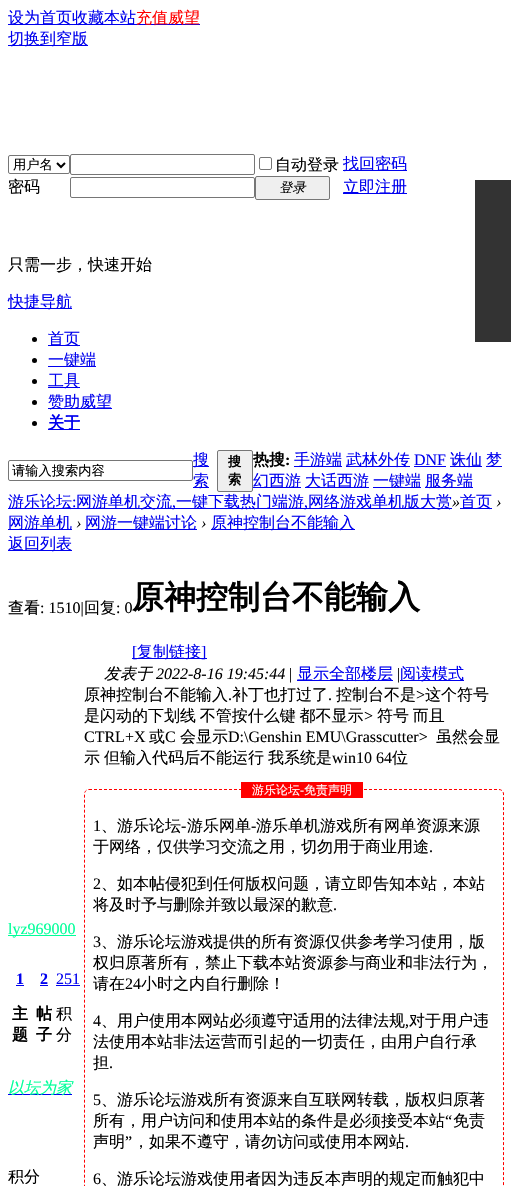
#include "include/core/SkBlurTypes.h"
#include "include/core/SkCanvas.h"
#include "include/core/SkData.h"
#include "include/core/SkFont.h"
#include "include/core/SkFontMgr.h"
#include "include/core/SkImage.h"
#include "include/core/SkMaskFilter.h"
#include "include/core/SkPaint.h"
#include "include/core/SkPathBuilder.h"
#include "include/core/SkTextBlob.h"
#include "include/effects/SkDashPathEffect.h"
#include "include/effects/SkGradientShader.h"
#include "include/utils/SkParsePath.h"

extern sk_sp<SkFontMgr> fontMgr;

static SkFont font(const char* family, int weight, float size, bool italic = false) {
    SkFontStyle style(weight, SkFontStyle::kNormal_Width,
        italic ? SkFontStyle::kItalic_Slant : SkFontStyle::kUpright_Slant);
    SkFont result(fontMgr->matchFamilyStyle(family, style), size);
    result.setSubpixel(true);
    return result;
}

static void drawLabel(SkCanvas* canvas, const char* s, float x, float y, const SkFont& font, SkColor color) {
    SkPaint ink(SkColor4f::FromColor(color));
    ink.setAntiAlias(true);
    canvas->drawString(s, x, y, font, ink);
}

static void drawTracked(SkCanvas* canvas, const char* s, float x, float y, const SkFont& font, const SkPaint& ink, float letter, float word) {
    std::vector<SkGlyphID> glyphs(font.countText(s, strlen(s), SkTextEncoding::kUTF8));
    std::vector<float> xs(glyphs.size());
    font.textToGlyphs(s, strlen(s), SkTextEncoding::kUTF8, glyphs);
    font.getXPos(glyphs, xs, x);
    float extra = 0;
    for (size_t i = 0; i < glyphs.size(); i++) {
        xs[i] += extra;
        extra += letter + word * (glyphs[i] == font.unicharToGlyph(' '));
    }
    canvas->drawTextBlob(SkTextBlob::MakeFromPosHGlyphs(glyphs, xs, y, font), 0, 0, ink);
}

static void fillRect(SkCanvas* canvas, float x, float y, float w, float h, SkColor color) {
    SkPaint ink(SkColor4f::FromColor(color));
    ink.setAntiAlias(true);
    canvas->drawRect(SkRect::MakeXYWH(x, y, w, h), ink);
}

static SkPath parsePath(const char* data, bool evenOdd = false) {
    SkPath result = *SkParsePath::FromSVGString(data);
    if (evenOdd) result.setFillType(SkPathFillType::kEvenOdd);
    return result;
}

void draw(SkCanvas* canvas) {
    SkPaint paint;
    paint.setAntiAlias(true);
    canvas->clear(0xFFFFFFFF);
    fillRect(canvas, 8, 24, 192, 1, 0xFF0000EE);
    SkFont font1 = font("WenQuanYi Zen Hei", 500, 16);
    drawLabel(canvas, "设为首页收藏本站", 8, 23, font1, 0xFF0000EE);
    drawLabel(canvas, "充值威望", 136, 23, font1, 0xFFFF0000);
    fillRect(canvas, 8, 45, 80, 1, 0xFF0000EE);
    drawLabel(canvas, "切换到窄版", 8, 44, font1, 0xFF0000EE);
    paint.setStroke(true);
    paint.setStrokeWidth(1);
    paint.setColor(0xFF767676);
    canvas->drawRoundRect(SkRect::MakeXYWH(8.5f, 155.5f, 61, 18), 1.5f, 1.5f, paint);
    paint.setStrokeWidth(2);
    paint.setColor(0xFF000000);
    canvas->drawPath(parsePath("M57 163L61 167L65 163"), paint);
    SkFont font2 = font("WenQuanYi Zen Hei", 500, 13.25f);
    drawLabel(canvas, "用户名", 13, 169, font2, 0xFF000000);
    paint.setStrokeWidth(1);
    paint.setColor(0xFF767676);
    canvas->drawRoundRect(SkRect::MakeXYWH(70.5f, 154.5f, 184, 20), 1.5f, 1.5f, paint);
    canvas->drawRoundRect(SkRect::MakeXYWH(259.5f, 157.5f, 12, 12), 1.5f, 1.5f, paint);
    drawLabel(canvas, "自动登录", 275, 170, font1, 0xFF000000);
    fillRect(canvas, 343, 170, 64, 1, 0xFF0000EE);
    drawLabel(canvas, "找回密码", 343, 169, font1, 0xFF0000EE);
    drawLabel(canvas, "密码", 8, 192, font1, 0xFF000000);
    canvas->drawRoundRect(SkRect::MakeXYWH(70.5f, 177.5f, 184, 20), 1.5f, 1.5f, paint);
    paint.setStroke(false);
    paint.setColor(0xFFEFEFEF);
    canvas->drawRoundRect(SkRect::MakeXYWH(255.5f, 176.5f, 74, 23), 1.5f, 1.5f, paint);
    paint.setStroke(true);
    paint.setColor(0xFF767676);
    canvas->drawRoundRect(SkRect::MakeXYWH(255.5f, 176.5f, 74, 23), 1.5f, 1.5f, paint);
    SkFont font3 = font("WenQuanYi Zen Hei", 500, 13.25f, true);
    drawLabel(canvas, "登录", 279, 192, font3, 0xFF000000);
    fillRect(canvas, 343, 193, 64, 1, 0xFF0000EE);
    drawLabel(canvas, "立即注册", 343, 192, font1, 0xFF0000EE);
    drawLabel(canvas, "只需一步，快速开始", 8, 270, font1, 0xFF000000);
    fillRect(canvas, 8, 308, 64, 1, 0xFF0000EE);
    drawLabel(canvas, "快捷导航", 8, 307, font1, 0xFF0000EE);
    paint.setStroke(false);
    paint.setColor(0xFF000000);
    canvas->drawCircle(34.5f, 339.5f, 2.5f, paint);
    fillRect(canvas, 48, 345, 32, 1, 0xFF0000EE);
    drawLabel(canvas, "首页", 48, 344, font1, 0xFF0000EE);
    canvas->drawCircle(34.5f, 360.5f, 2.5f, paint);
    fillRect(canvas, 48, 366, 48, 1, 0xFF0000EE);
    drawLabel(canvas, "一键端", 48, 365, font1, 0xFF0000EE);
    canvas->drawCircle(34.5f, 381.5f, 2.5f, paint);
    fillRect(canvas, 48, 387, 32, 1, 0xFF0000EE);
    drawLabel(canvas, "工具", 48, 386, font1, 0xFF0000EE);
    canvas->drawCircle(34.5f, 402.5f, 2.5f, paint);
    fillRect(canvas, 48, 408, 64, 1, 0xFF0000EE);
    drawLabel(canvas, "赞助威望", 48, 407, font1, 0xFF0000EE);
    canvas->drawCircle(34.5f, 423.5f, 2.5f, paint);
    fillRect(canvas, 48, 429, 32, 1, 0xFF0000EE);
    SkFont font4 = font("WenQuanYi Zen Hei", 700, 16);
    drawLabel(canvas, "关于", 48, 428, font4, 0xFF0000EE);
    paint.setStroke(true);
    paint.setColor(0xFF767676);
    canvas->drawRoundRect(SkRect::MakeXYWH(8.5f, 460.5f, 184, 20), 1.5f, 1.5f, paint);
    drawLabel(canvas, "请输入搜索内容", 12, 475, font2, 0xFF000000);
    fillRect(canvas, 193, 466, 16, 1, 0xFF0000EE);
    drawLabel(canvas, "搜", 193, 465, font1, 0xFF0000EE);
    fillRect(canvas, 193, 487, 16, 1, 0xFF0000EE);
    drawLabel(canvas, "索", 193, 486, font1, 0xFF0000EE);
    paint.setStroke(false);
    paint.setColor(0xFFEFEFEF);
    canvas->drawRoundRect(SkRect::MakeXYWH(217.5f, 450.5f, 35, 41), 1.5f, 1.5f, paint);
    paint.setStroke(true);
    paint.setColor(0xFF767676);
    canvas->drawRoundRect(SkRect::MakeXYWH(217.5f, 450.5f, 35, 41), 1.5f, 1.5f, paint);
    SkFont font5 = font("WenQuanYi Zen Hei", 700, 13.25f);
    drawLabel(canvas, "搜", 228, 466, font5, 0xFF000000);
    drawLabel(canvas, "索", 228, 484, font5, 0xFF000000);
    drawLabel(canvas, "热搜", 253, 465, font4, 0xFF000000);
    SkFont font6 = font("Liberation Serif", 700, 16);
    drawLabel(canvas, ":", 285, 465, font6, 0xFF000000);
    fillRect(canvas, 294, 466, 48, 1, 0xFF0000EE);
    drawLabel(canvas, "手游端", 294, 465, font1, 0xFF0000EE);
    fillRect(canvas, 346, 466, 64, 1, 0xFF0000EE);
    drawLabel(canvas, "武林外传", 346, 465, font1, 0xFF0000EE);
    SkFont font7 = font("Liberation Serif", 400, 16);
    drawLabel(canvas, "DNF", 414, 465, font7, 0xFF0000EE);
    fillRect(canvas, 414, 466, 32, 1, 0xFF0000EE);
    fillRect(canvas, 450, 466, 32, 1, 0xFF0000EE);
    drawLabel(canvas, "诛仙", 450, 465, font1, 0xFF0000EE);
    fillRect(canvas, 486, 466, 16, 1, 0xFF0000EE);
    drawLabel(canvas, "梦", 486, 465, font1, 0xFF0000EE);
    fillRect(canvas, 253, 487, 48, 1, 0xFF0000EE);
    drawLabel(canvas, "幻西游", 253, 486, font1, 0xFF0000EE);
    fillRect(canvas, 305, 487, 64, 1, 0xFF0000EE);
    drawLabel(canvas, "大话西游", 305, 486, font1, 0xFF0000EE);
    fillRect(canvas, 373, 487, 48, 1, 0xFF0000EE);
    drawLabel(canvas, "一键端", 373, 486, font1, 0xFF0000EE);
    fillRect(canvas, 425, 487, 48, 1, 0xFF0000EE);
    drawLabel(canvas, "服务端", 425, 486, font1, 0xFF0000EE);
    fillRect(canvas, 475, 180, 36, 162, 0xFF333333);
    fillRect(canvas, 8, 508, 444, 1, 0xFF0000EE);
    drawLabel(canvas, "游乐论坛", 8, 507, font1, 0xFF0000EE);
    drawLabel(canvas, ":", 72, 507, font7, 0xFF0000EE);
    drawLabel(canvas, "网游单机交流", 76, 507, font1, 0xFF0000EE);
    drawLabel(canvas, "一键下载热门端游", 176, 507, font1, 0xFF0000EE);
    drawLabel(canvas, "网络游戏单机版大赏", 308, 507, font1, 0xFF0000EE);
    SkFont font8 = font("Liberation Serif", 400, 16, true);
    drawLabel(canvas, "»", 452, 507, font8, 0xFF000000);
    fillRect(canvas, 460, 508, 32, 1, 0xFF0000EE);
    drawLabel(canvas, "首页", 460, 507, font1, 0xFF0000EE);
    drawLabel(canvas, "›", 496, 507, font8, 0xFF000000);
    drawLabel(canvas, ",", 172, 507, font7, 0xFF0000EE);
    drawLabel(canvas, ",", 304, 507, font7, 0xFF0000EE);
    fillRect(canvas, 8, 529, 64, 1, 0xFF0000EE);
    drawLabel(canvas, "网游单机", 8, 528, font1, 0xFF0000EE);
    drawLabel(canvas, "›", 76, 528, font8, 0xFF000000);
    fillRect(canvas, 85, 529, 112, 1, 0xFF0000EE);
    drawLabel(canvas, "网游一键端讨论", 85, 528, font1, 0xFF0000EE);
    drawLabel(canvas, "›", 201, 528, font8, 0xFF000000);
    fillRect(canvas, 211, 529, 144, 1, 0xFF0000EE);
    drawLabel(canvas, "原神控制台不能输入", 211, 528, font1, 0xFF0000EE);
    fillRect(canvas, 8, 550, 64, 1, 0xFF0000EE);
    drawLabel(canvas, "返回列表", 8, 549, font1, 0xFF0000EE);
    drawLabel(canvas, "查看", 8, 613, font1, 0xFF000000);
    drawLabel(canvas, ": 1510|", 40, 613, font7, 0xFF000000);
    drawLabel(canvas, "回复", 84, 613, font1, 0xFF000000);
    drawLabel(canvas, ": 0", 116, 613, font7, 0xFF000000);
    SkFont font9 = font("WenQuanYi Zen Hei", 700, 32);
    drawLabel(canvas, "原神控制台不能输入", 132, 608, font9, 0xFF000000);
    fillRect(canvas, 132, 658, 75, 1, 0xFF0000EE);
    drawLabel(canvas, "[", 132, 657, font7, 0xFF0000EE);
    drawLabel(canvas, "复制链接", 137, 657, font1, 0xFF0000EE);
    drawLabel(canvas, "]", 201, 657, font7, 0xFF0000EE);
    fillRect(canvas, 8, 935, 68, 1, 0xFF00FF99);
    drawLabel(canvas, "lyz969000", 8, 934, font7, 0xFF00FF99);
    drawLabel(canvas, "1", 16, 984, font6, 0xFF0000EE);
    fillRect(canvas, 16, 985, 8, 1, 0xFF0000EE);
    drawLabel(canvas, "主", 12, 1019, font4, 0xFF000000);
    drawLabel(canvas, "题", 12, 1040, font4, 0xFF000000);
    drawLabel(canvas, "2", 40, 984, font6, 0xFF0000EE);
    fillRect(canvas, 40, 985, 8, 1, 0xFF0000EE);
    drawLabel(canvas, "帖", 36, 1019, font4, 0xFF000000);
    drawLabel(canvas, "子", 36, 1040, font4, 0xFF000000);
    drawLabel(canvas, "251", 56, 984, font7, 0xFF0000EE);
    fillRect(canvas, 56, 985, 24, 1, 0xFF0000EE);
    drawLabel(canvas, "积", 56, 1019, font1, 0xFF000000);
    drawLabel(canvas, "分", 56, 1040, font1, 0xFF000000);
    fillRect(canvas, 8, 1094, 64, 1, 0xFF0000EE);
    SkFont font10 = font("WenQuanYi Zen Hei", 500, 16, true);
    drawLabel(canvas, "以坛为家", 8, 1093, font10, 0xFF00FF99);
    drawLabel(canvas, "积分", 8, 1182, font1, 0xFF000000);
    drawLabel(canvas, "发表于", 104, 679, font10, 0xFF000000);
    drawLabel(canvas, "2022-8-16 19:45:44", 156, 679, font8, 0xFF000000);
    drawLabel(canvas, "|", 289, 679, font7, 0xFF000000);
    fillRect(canvas, 297, 680, 96, 1, 0xFF0000EE);
    drawLabel(canvas, "显示全部楼层", 297, 679, font1, 0xFF0000EE);
    drawLabel(canvas, "|", 397, 679, font7, 0xFF000000);
    fillRect(canvas, 400, 680, 64, 1, 0xFF0000EE);
    drawLabel(canvas, "阅读模式", 400, 679, font1, 0xFF0000EE);
    drawLabel(canvas, "原神控制台不能输入", 84, 700, font1, 0xFF000000);
    drawLabel(canvas, "补丁也打过了", 232, 700, font1, 0xFF000000);
    drawLabel(canvas, "控制台不是", 336, 700, font1, 0xFF000000);
    drawLabel(canvas, ">", 416, 700, font7, 0xFF000000);
    drawLabel(canvas, "这个符号", 425, 700, font1, 0xFF000000);
    drawLabel(canvas, ".", 228, 700, font7, 0xFF000000);
    drawLabel(canvas, ".", 328, 700, font7, 0xFF000000);
    paint.setStroke(false);
    paint.setColor(0xFF000000);
    drawTracked(canvas, "是闪动的下划线 不管按什么键 都不显示", 84, 721, font1, paint, 0, -1);
    drawLabel(canvas, ">", 364, 721, font7, 0xFF000000);
    drawTracked(canvas, "符号 而且", 377, 721, font1, paint, 0, -1);
    drawLabel(canvas, "CTRL+X", 84, 742, font7, 0xFF000000);
    drawLabel(canvas, "或", 149, 742, font1, 0xFF000000);
    drawLabel(canvas, "C", 165, 742, font7, 0xFF000000);
    drawLabel(canvas, "会显示", 180, 742, font1, 0xFF000000);
    drawLabel(canvas, "D:\\Genshin EMU\\Grasscutter>", 228, 742, font7, 0xFF000000);
    drawLabel(canvas, "虽然会显", 436, 742, font1, 0xFF000000);
    drawLabel(canvas, "示", 84, 763, font1, 0xFF000000);
    drawLabel(canvas, "但输入代码后不能运行", 104, 763, font1, 0xFF000000);
    drawLabel(canvas, "我系统是", 268, 763, font1, 0xFF000000);
    drawLabel(canvas, "win10 64", 332, 763, font7, 0xFF000000);
    drawLabel(canvas, "位", 392, 763, font1, 0xFF000000);
    paint.setStroke(true);
    paint.setColor(0xFFFF0000);
    paint.setPathEffect(SkDashPathEffect::Make({{3, 2}}, 0));
    canvas->drawPath(parsePath("M89 789.5H499C501.5 789.5 503.5 791.5 503.5 794V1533C503.5 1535.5 501.5 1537.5 499 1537.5H89C86.5 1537.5 84.5 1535.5 84.5 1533V794C84.5 791.5 86.5 789.5 89 789.5Z"), paint);
    paint.setPathEffect(nullptr);
    fillRect(canvas, 241, 782, 122, 16, 0xFFFF0000);
    SkFont font11 = font("WenQuanYi Zen Hei", 500, 12);
    drawLabel(canvas, "游乐论坛", 252, 794, font11, 0xFFFFFFFF);
    SkFont font12 = font("Liberation Serif", 400, 12);
    drawLabel(canvas, "-", 300, 794, font12, 0xFFFFFFFF);
    drawLabel(canvas, "免责声明", 304, 794, font11, 0xFFFFFFFF);
    drawLabel(canvas, "1", 93, 831, font7, 0xFF000000);
    drawLabel(canvas, "、游乐论坛", 101, 831, font1, 0xFF000000);
    drawLabel(canvas, "-", 181, 831, font7, 0xFF000000);
    drawLabel(canvas, "游乐网单", 187, 831, font1, 0xFF000000);
    drawLabel(canvas, "-", 251, 831, font7, 0xFF000000);
    drawLabel(canvas, "游乐单机游戏所有网单资源来源", 256, 831, font1, 0xFF000000);
    drawLabel(canvas, "于网络，仅供学习交流之用，切勿用于商业用途", 93, 852, font1, 0xFF000000);
    drawLabel(canvas, ".", 429, 852, font7, 0xFF000000);
    drawLabel(canvas, "2", 93, 889, font7, 0xFF000000);
    drawLabel(canvas, "、如本帖侵犯到任何版权问题，请立即告知本站，本站", 101, 889, font1, 0xFF000000);
    drawLabel(canvas, "将及时予与删除并致以最深的歉意", 93, 910, font1, 0xFF000000);
    drawLabel(canvas, ".", 333, 910, font7, 0xFF000000);
    drawLabel(canvas, "3", 93, 947, font7, 0xFF000000);
    drawLabel(canvas, "、游乐论坛游戏提供的所有资源仅供参考学习使用，版", 101, 947, font1, 0xFF000000);
    drawLabel(canvas, "权归原著所有，禁止下载本站资源参与商业和非法行为，", 93, 968, font1, 0xFF000000);
    drawLabel(canvas, "请在", 93, 989, font1, 0xFF000000);
    drawLabel(canvas, "24", 125, 989, font7, 0xFF000000);
    drawLabel(canvas, "小时之内自行删除！", 141, 989, font1, 0xFF000000);
    drawLabel(canvas, "4", 93, 1026, font7, 0xFF000000);
    drawLabel(canvas, "、用户使用本网站必须遵守适用的法律法规", 101, 1026, font1, 0xFF000000);
    drawLabel(canvas, "对于用户违", 409, 1026, font1, 0xFF000000);
    drawLabel(canvas, ",", 405, 1026, font7, 0xFF000000);
    drawLabel(canvas, "法使用本站非法运营而引起的一切责任，由用户自行承", 93, 1047, font1, 0xFF000000);
    drawLabel(canvas, "担", 93, 1068, font1, 0xFF000000);
    drawLabel(canvas, ".", 109, 1068, font7, 0xFF000000);
    drawLabel(canvas, "5", 93, 1105, font7, 0xFF000000);
    drawLabel(canvas, "、游乐论坛游戏所有资源来自互联网转载，版权归原著", 101, 1105, font1, 0xFF000000);
    drawLabel(canvas, "所有，用户访问和使用本站的条件是必须接受本站", 93, 1126, font1, 0xFF000000);
    drawLabel(canvas, "“", 445, 1126, font7, 0xFF000000);
    drawLabel(canvas, "免责", 453, 1126, font1, 0xFF000000);
    drawLabel(canvas, "声明", 93, 1147, font1, 0xFF000000);
    drawLabel(canvas, "”", 125, 1147, font7, 0xFF000000);
    drawLabel(canvas, "，如果不遵守，请勿访问或使用本网站", 133, 1147, font1, 0xFF000000);
    drawLabel(canvas, ".", 405, 1147, font7, 0xFF000000);
    drawLabel(canvas, "6", 93, 1184, font7, 0xFF000000);
    drawLabel(canvas, "、游乐论坛游戏使用者因为违反本声明的规定而触犯中", 101, 1184, font1, 0xFF000000);
}
